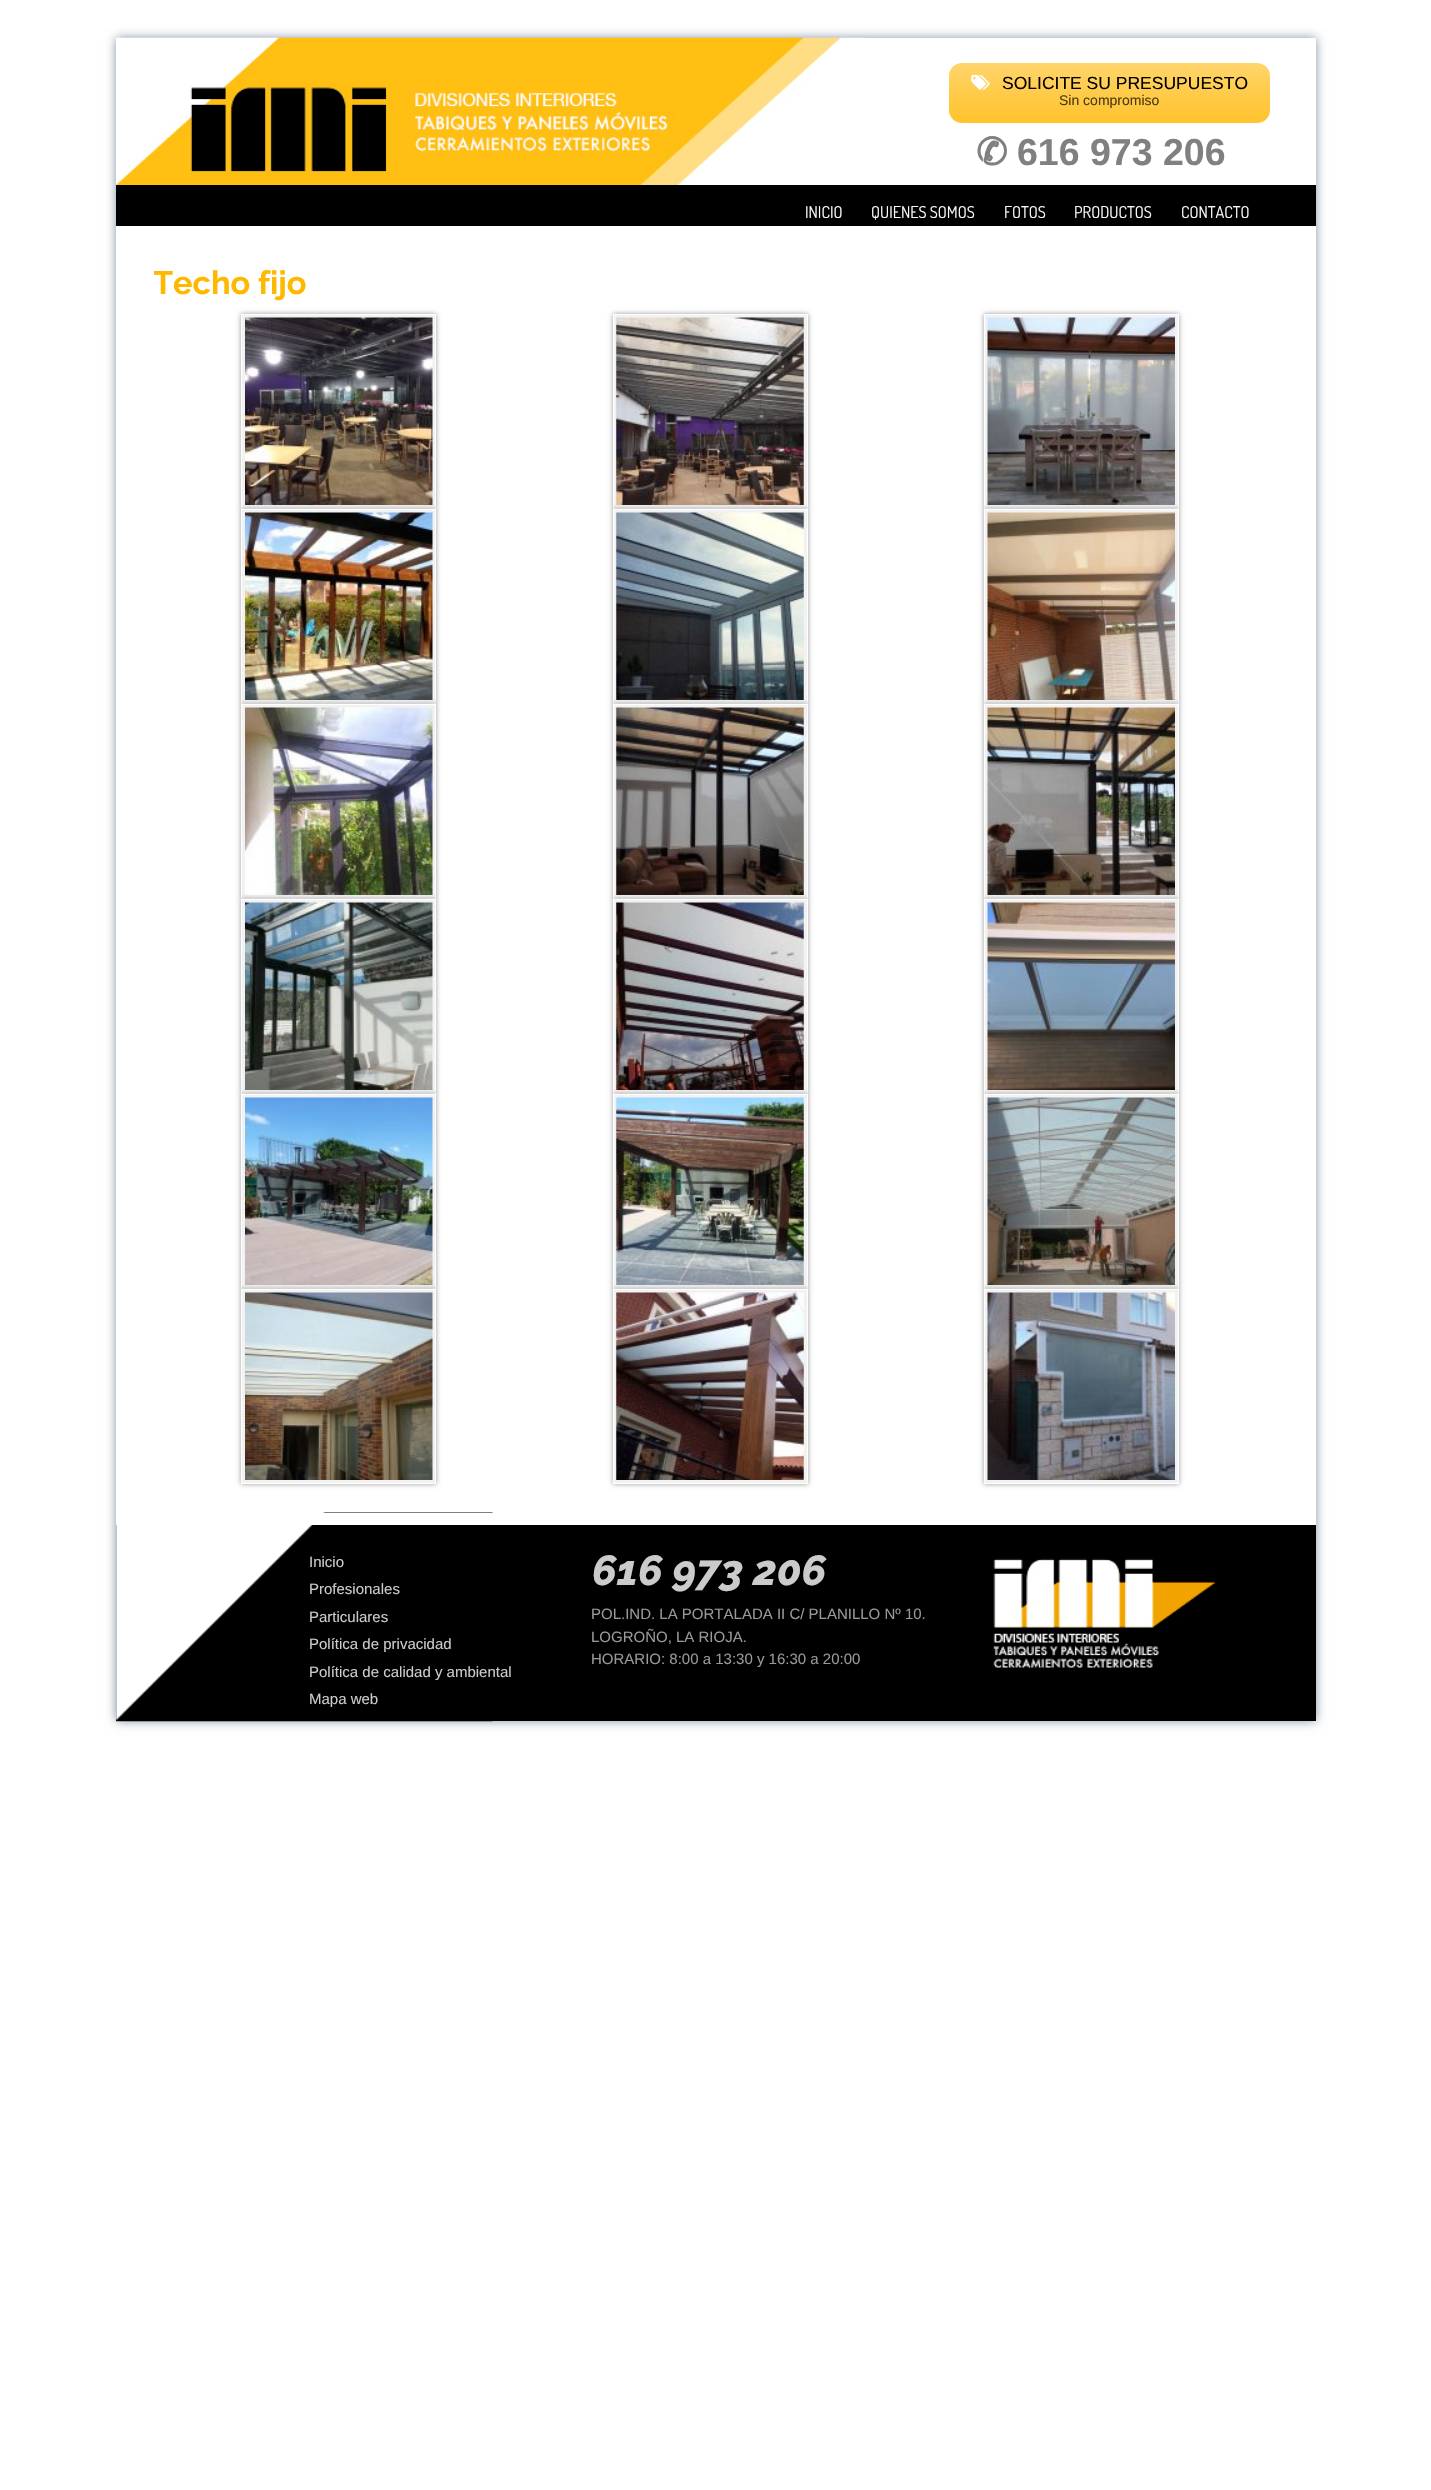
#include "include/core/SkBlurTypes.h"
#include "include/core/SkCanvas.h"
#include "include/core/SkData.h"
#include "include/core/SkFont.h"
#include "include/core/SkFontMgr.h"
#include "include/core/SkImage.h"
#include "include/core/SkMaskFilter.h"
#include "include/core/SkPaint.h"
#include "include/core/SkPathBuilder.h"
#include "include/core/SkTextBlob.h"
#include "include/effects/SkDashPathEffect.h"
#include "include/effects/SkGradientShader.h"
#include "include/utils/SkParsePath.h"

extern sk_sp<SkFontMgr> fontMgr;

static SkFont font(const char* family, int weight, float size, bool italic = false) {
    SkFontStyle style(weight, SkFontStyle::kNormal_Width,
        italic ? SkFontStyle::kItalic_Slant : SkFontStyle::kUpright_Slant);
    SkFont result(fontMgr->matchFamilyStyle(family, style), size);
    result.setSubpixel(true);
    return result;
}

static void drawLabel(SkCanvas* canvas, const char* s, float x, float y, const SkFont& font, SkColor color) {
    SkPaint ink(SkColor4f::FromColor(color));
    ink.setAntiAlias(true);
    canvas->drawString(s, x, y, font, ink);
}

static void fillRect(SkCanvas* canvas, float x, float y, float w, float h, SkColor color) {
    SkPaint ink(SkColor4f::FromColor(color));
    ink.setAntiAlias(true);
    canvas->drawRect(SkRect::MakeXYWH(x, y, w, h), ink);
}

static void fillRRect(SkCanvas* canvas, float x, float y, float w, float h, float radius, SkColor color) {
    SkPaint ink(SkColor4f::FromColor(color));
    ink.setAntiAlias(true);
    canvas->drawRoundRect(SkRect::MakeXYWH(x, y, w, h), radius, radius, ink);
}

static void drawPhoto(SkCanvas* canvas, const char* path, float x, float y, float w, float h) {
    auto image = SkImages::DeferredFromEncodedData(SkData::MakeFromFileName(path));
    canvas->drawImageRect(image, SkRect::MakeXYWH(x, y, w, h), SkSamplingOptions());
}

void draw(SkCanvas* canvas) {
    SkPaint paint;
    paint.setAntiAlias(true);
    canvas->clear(0xFFFFFFFF);
    paint.setColor(0xFF8493A6);
    paint.setMaskFilter(SkMaskFilter::MakeBlur(kNormal_SkBlurStyle, 5));
    canvas->drawRect(SkRect::MakeXYWH(116, 38, 1200, 1683), paint);
    paint.setMaskFilter(nullptr);
    fillRect(canvas, 116, 38, 1200, 1475, 0xFFFFFFFF);
    drawPhoto(canvas, "assets/img1.png", 116, 37, 749, 148);
    fillRRect(canvas, 949, 63, 321, 60, 13, 0xFFFFC430);
    drawPhoto(canvas, "assets/img2.png", 949, 63, 321, 53);
    drawPhoto(canvas, "assets/img3.png", 971, 75, 19, 15);
    SkFont font1 = font("Liberation Sans", 400, 17.5f);
    drawLabel(canvas, "SOLICITE SU PRESUPUESTO", 1002, 89, font1, 0xFF000000);
    SkFont font2 = font("Liberation Sans", 400, 14);
    drawLabel(canvas, "Sin compromiso", 1059, 105, font2, 0xFF4D3C14);
    SkFont font3 = font("DejaVu Sans", 700, 37.5f);
    drawLabel(canvas, "✆", 976, 165, font3, 0xFF808080);
    SkFont font4 = font("Liberation Sans", 700, 37.5f);
    drawLabel(canvas, "616 973 206", 1017, 165, font4, 0xFF808080);
    fillRect(canvas, 116, 185, 1200, 41, 0xFF000000);
    SkFont font5 = font("Dosis", 400, 16.25f);
    drawLabel(canvas, "INICIO", 805, 218, font5, 0xFFFAFAFA);
    drawLabel(canvas, "QUIENES SOMOS", 871, 218, font5, 0xFFFAFAFA);
    drawLabel(canvas, "FOTOS", 1004, 218, font5, 0xFFFAFAFA);
    drawLabel(canvas, "PRODUCTOS", 1074, 218, font5, 0xFFFAFAFA);
    drawLabel(canvas, "CONTACTO", 1181, 218, font5, 0xFFFAFAFA);
    canvas->save();
    canvas->clipRect(SkRect::MakeXYWH(154, 264, 1125, 1242));
    SkFont font6 = font("Raleway", 700, 32.5f);
    drawLabel(canvas, "Techo fijo", 153, 294, font6, 0xFFFFB800);
    canvas->restore();
    paint.setColor(0xFF999999);
    paint.setMaskFilter(SkMaskFilter::MakeBlur(kNormal_SkBlurStyle, 2.5f));
    canvas->drawRect(SkRect::MakeXYWH(241, 314, 195, 195), paint);
    paint.setMaskFilter(nullptr);
    paint.setColor(0xFFF2F2F2);
    canvas->drawRect(SkRect::MakeXYWH(241.5f, 314.5f, 194, 194), paint);
    paint.setStroke(true);
    paint.setStrokeWidth(1);
    paint.setColor(0xFFFFFFFF);
    canvas->drawRect(SkRect::MakeXYWH(241.5f, 314.5f, 194, 194), paint);
    drawPhoto(canvas, "assets/img4.png", 245, 317, 188, 188);
    paint.setStroke(false);
    paint.setColor(0xFF999999);
    paint.setMaskFilter(SkMaskFilter::MakeBlur(kNormal_SkBlurStyle, 2.5f));
    canvas->drawRect(SkRect::MakeXYWH(613, 314, 195, 195), paint);
    paint.setMaskFilter(nullptr);
    paint.setColor(0xFFF2F2F2);
    canvas->drawRect(SkRect::MakeXYWH(613.5f, 314.5f, 194, 194), paint);
    paint.setStroke(true);
    paint.setColor(0xFFFFFFFF);
    canvas->drawRect(SkRect::MakeXYWH(613.5f, 314.5f, 194, 194), paint);
    drawPhoto(canvas, "assets/img5.png", 616, 317, 188, 188);
    paint.setStroke(false);
    paint.setColor(0xFF999999);
    paint.setMaskFilter(SkMaskFilter::MakeBlur(kNormal_SkBlurStyle, 2.5f));
    canvas->drawRect(SkRect::MakeXYWH(984, 314, 195, 195), paint);
    paint.setMaskFilter(nullptr);
    paint.setColor(0xFFF2F2F2);
    canvas->drawRect(SkRect::MakeXYWH(984.5f, 314.5f, 194, 194), paint);
    paint.setStroke(true);
    paint.setColor(0xFFFFFFFF);
    canvas->drawRect(SkRect::MakeXYWH(984.5f, 314.5f, 194, 194), paint);
    drawPhoto(canvas, "assets/img6.png", 987, 317, 188, 188);
    paint.setStroke(false);
    paint.setColor(0xFF999999);
    paint.setMaskFilter(SkMaskFilter::MakeBlur(kNormal_SkBlurStyle, 2.5f));
    canvas->drawRect(SkRect::MakeXYWH(241, 509, 195, 195), paint);
    paint.setMaskFilter(nullptr);
    paint.setColor(0xFFF2F2F2);
    canvas->drawRect(SkRect::MakeXYWH(241.5f, 509.5f, 194, 194), paint);
    paint.setStroke(true);
    paint.setColor(0xFFFFFFFF);
    canvas->drawRect(SkRect::MakeXYWH(241.5f, 509.5f, 194, 194), paint);
    drawPhoto(canvas, "assets/img7.png", 245, 512, 188, 188);
    paint.setStroke(false);
    paint.setColor(0xFF999999);
    paint.setMaskFilter(SkMaskFilter::MakeBlur(kNormal_SkBlurStyle, 2.5f));
    canvas->drawRect(SkRect::MakeXYWH(613, 509, 195, 195), paint);
    paint.setMaskFilter(nullptr);
    paint.setColor(0xFFF2F2F2);
    canvas->drawRect(SkRect::MakeXYWH(613.5f, 509.5f, 194, 194), paint);
    paint.setStroke(true);
    paint.setColor(0xFFFFFFFF);
    canvas->drawRect(SkRect::MakeXYWH(613.5f, 509.5f, 194, 194), paint);
    drawPhoto(canvas, "assets/img8.png", 616, 512, 188, 188);
    paint.setStroke(false);
    paint.setColor(0xFF999999);
    paint.setMaskFilter(SkMaskFilter::MakeBlur(kNormal_SkBlurStyle, 2.5f));
    canvas->drawRect(SkRect::MakeXYWH(984, 509, 195, 195), paint);
    paint.setMaskFilter(nullptr);
    paint.setColor(0xFFF2F2F2);
    canvas->drawRect(SkRect::MakeXYWH(984.5f, 509.5f, 194, 194), paint);
    paint.setStroke(true);
    paint.setColor(0xFFFFFFFF);
    canvas->drawRect(SkRect::MakeXYWH(984.5f, 509.5f, 194, 194), paint);
    drawPhoto(canvas, "assets/img9.png", 987, 512, 188, 188);
    paint.setStroke(false);
    paint.setColor(0xFF999999);
    paint.setMaskFilter(SkMaskFilter::MakeBlur(kNormal_SkBlurStyle, 2.5f));
    canvas->drawRect(SkRect::MakeXYWH(241, 704, 195, 195), paint);
    paint.setMaskFilter(nullptr);
    paint.setColor(0xFFF2F2F2);
    canvas->drawRect(SkRect::MakeXYWH(241.5f, 704.5f, 194, 194), paint);
    paint.setStroke(true);
    paint.setColor(0xFFFFFFFF);
    canvas->drawRect(SkRect::MakeXYWH(241.5f, 704.5f, 194, 194), paint);
    drawPhoto(canvas, "assets/img10.png", 245, 707, 188, 188);
    paint.setStroke(false);
    paint.setColor(0xFF999999);
    paint.setMaskFilter(SkMaskFilter::MakeBlur(kNormal_SkBlurStyle, 2.5f));
    canvas->drawRect(SkRect::MakeXYWH(613, 704, 195, 195), paint);
    paint.setMaskFilter(nullptr);
    paint.setColor(0xFFF2F2F2);
    canvas->drawRect(SkRect::MakeXYWH(613.5f, 704.5f, 194, 194), paint);
    paint.setStroke(true);
    paint.setColor(0xFFFFFFFF);
    canvas->drawRect(SkRect::MakeXYWH(613.5f, 704.5f, 194, 194), paint);
    drawPhoto(canvas, "assets/img11.png", 616, 707, 188, 188);
    paint.setStroke(false);
    paint.setColor(0xFF999999);
    paint.setMaskFilter(SkMaskFilter::MakeBlur(kNormal_SkBlurStyle, 2.5f));
    canvas->drawRect(SkRect::MakeXYWH(984, 704, 195, 195), paint);
    paint.setMaskFilter(nullptr);
    paint.setColor(0xFFF2F2F2);
    canvas->drawRect(SkRect::MakeXYWH(984.5f, 704.5f, 194, 194), paint);
    paint.setStroke(true);
    paint.setColor(0xFFFFFFFF);
    canvas->drawRect(SkRect::MakeXYWH(984.5f, 704.5f, 194, 194), paint);
    drawPhoto(canvas, "assets/img12.png", 987, 707, 188, 188);
    paint.setStroke(false);
    paint.setColor(0xFF999999);
    paint.setMaskFilter(SkMaskFilter::MakeBlur(kNormal_SkBlurStyle, 2.5f));
    canvas->drawRect(SkRect::MakeXYWH(241, 899, 195, 195), paint);
    paint.setMaskFilter(nullptr);
    paint.setColor(0xFFF2F2F2);
    canvas->drawRect(SkRect::MakeXYWH(241.5f, 899.5f, 194, 194), paint);
    paint.setStroke(true);
    paint.setColor(0xFFFFFFFF);
    canvas->drawRect(SkRect::MakeXYWH(241.5f, 899.5f, 194, 194), paint);
    drawPhoto(canvas, "assets/img13.png", 245, 902, 188, 188);
    paint.setStroke(false);
    paint.setColor(0xFF999999);
    paint.setMaskFilter(SkMaskFilter::MakeBlur(kNormal_SkBlurStyle, 2.5f));
    canvas->drawRect(SkRect::MakeXYWH(613, 899, 195, 195), paint);
    paint.setMaskFilter(nullptr);
    paint.setColor(0xFFF2F2F2);
    canvas->drawRect(SkRect::MakeXYWH(613.5f, 899.5f, 194, 194), paint);
    paint.setStroke(true);
    paint.setColor(0xFFFFFFFF);
    canvas->drawRect(SkRect::MakeXYWH(613.5f, 899.5f, 194, 194), paint);
    drawPhoto(canvas, "assets/img14.png", 616, 902, 188, 188);
    paint.setStroke(false);
    paint.setColor(0xFF999999);
    paint.setMaskFilter(SkMaskFilter::MakeBlur(kNormal_SkBlurStyle, 2.5f));
    canvas->drawRect(SkRect::MakeXYWH(984, 899, 195, 195), paint);
    paint.setMaskFilter(nullptr);
    paint.setColor(0xFFF2F2F2);
    canvas->drawRect(SkRect::MakeXYWH(984.5f, 899.5f, 194, 194), paint);
    paint.setStroke(true);
    paint.setColor(0xFFFFFFFF);
    canvas->drawRect(SkRect::MakeXYWH(984.5f, 899.5f, 194, 194), paint);
    drawPhoto(canvas, "assets/img15.png", 987, 902, 188, 188);
    paint.setStroke(false);
    paint.setColor(0xFF999999);
    paint.setMaskFilter(SkMaskFilter::MakeBlur(kNormal_SkBlurStyle, 2.5f));
    canvas->drawRect(SkRect::MakeXYWH(241, 1094, 195, 195), paint);
    paint.setMaskFilter(nullptr);
    paint.setColor(0xFFF2F2F2);
    canvas->drawRect(SkRect::MakeXYWH(241.5f, 1094.5f, 194, 194), paint);
    paint.setStroke(true);
    paint.setColor(0xFFFFFFFF);
    canvas->drawRect(SkRect::MakeXYWH(241.5f, 1094.5f, 194, 194), paint);
    drawPhoto(canvas, "assets/img16.png", 245, 1097, 188, 188);
    paint.setStroke(false);
    paint.setColor(0xFF999999);
    paint.setMaskFilter(SkMaskFilter::MakeBlur(kNormal_SkBlurStyle, 2.5f));
    canvas->drawRect(SkRect::MakeXYWH(613, 1094, 195, 195), paint);
    paint.setMaskFilter(nullptr);
    paint.setColor(0xFFF2F2F2);
    canvas->drawRect(SkRect::MakeXYWH(613.5f, 1094.5f, 194, 194), paint);
    paint.setStroke(true);
    paint.setColor(0xFFFFFFFF);
    canvas->drawRect(SkRect::MakeXYWH(613.5f, 1094.5f, 194, 194), paint);
    drawPhoto(canvas, "assets/img17.png", 616, 1097, 188, 188);
    paint.setStroke(false);
    paint.setColor(0xFF999999);
    paint.setMaskFilter(SkMaskFilter::MakeBlur(kNormal_SkBlurStyle, 2.5f));
    canvas->drawRect(SkRect::MakeXYWH(984, 1094, 195, 195), paint);
    paint.setMaskFilter(nullptr);
    paint.setColor(0xFFF2F2F2);
    canvas->drawRect(SkRect::MakeXYWH(984.5f, 1094.5f, 194, 194), paint);
    paint.setStroke(true);
    paint.setColor(0xFFFFFFFF);
    canvas->drawRect(SkRect::MakeXYWH(984.5f, 1094.5f, 194, 194), paint);
    drawPhoto(canvas, "assets/img18.png", 987, 1097, 188, 188);
    paint.setStroke(false);
    paint.setColor(0xFF999999);
    paint.setMaskFilter(SkMaskFilter::MakeBlur(kNormal_SkBlurStyle, 2.5f));
    canvas->drawRect(SkRect::MakeXYWH(241, 1289, 195, 195), paint);
    paint.setMaskFilter(nullptr);
    paint.setColor(0xFFF2F2F2);
    canvas->drawRect(SkRect::MakeXYWH(241.5f, 1289.5f, 194, 194), paint);
    paint.setStroke(true);
    paint.setColor(0xFFFFFFFF);
    canvas->drawRect(SkRect::MakeXYWH(241.5f, 1289.5f, 194, 194), paint);
    drawPhoto(canvas, "assets/img19.png", 245, 1292, 188, 188);
    paint.setStroke(false);
    paint.setColor(0xFF999999);
    paint.setMaskFilter(SkMaskFilter::MakeBlur(kNormal_SkBlurStyle, 2.5f));
    canvas->drawRect(SkRect::MakeXYWH(613, 1289, 195, 195), paint);
    paint.setMaskFilter(nullptr);
    paint.setColor(0xFFF2F2F2);
    canvas->drawRect(SkRect::MakeXYWH(613.5f, 1289.5f, 194, 194), paint);
    paint.setStroke(true);
    paint.setColor(0xFFFFFFFF);
    canvas->drawRect(SkRect::MakeXYWH(613.5f, 1289.5f, 194, 194), paint);
    drawPhoto(canvas, "assets/img20.png", 616, 1292, 188, 188);
    paint.setStroke(false);
    paint.setColor(0xFF999999);
    paint.setMaskFilter(SkMaskFilter::MakeBlur(kNormal_SkBlurStyle, 2.5f));
    canvas->drawRect(SkRect::MakeXYWH(984, 1289, 195, 195), paint);
    paint.setMaskFilter(nullptr);
    paint.setColor(0xFFF2F2F2);
    canvas->drawRect(SkRect::MakeXYWH(984.5f, 1289.5f, 194, 194), paint);
    paint.setStroke(true);
    paint.setColor(0xFFFFFFFF);
    canvas->drawRect(SkRect::MakeXYWH(984.5f, 1289.5f, 194, 194), paint);
    drawPhoto(canvas, "assets/img21.png", 987, 1292, 188, 188);
    fillRect(canvas, 116, 1525, 1200, 196, 0xFF000000);
    drawPhoto(canvas, "assets/img22.png", 116, 1512, 377, 210);
    fillRect(canvas, 116, 1513, 1200, 12, 0xFFFFFFFF);
    SkFont font7 = font("Liberation Sans", 400, 15);
    drawLabel(canvas, "Inicio", 309, 1567, font7, 0xFFCBCBCB);
    drawLabel(canvas, "Profesionales", 309, 1594, font7, 0xFFCBCBCB);
    drawLabel(canvas, "Particulares", 309, 1622, font7, 0xFFCBCBCB);
    drawLabel(canvas, "Política de privacidad", 309, 1649, font7, 0xFFCBCBCB);
    drawLabel(canvas, "Política de calidad y ambiental", 309, 1677, font7, 0xFFCBCBCB);
    drawLabel(canvas, "Mapa web", 309, 1704, font7, 0xFFCBCBCB);
    SkFont font8 = font("Raleway", 800, 42, true);
    drawLabel(canvas, "616 973 206", 592, 1585, font8, 0xFFCBCBCB);
    drawLabel(canvas, "POL.IND. LA PORTALADA II C/ PLANILLO Nº 10.", 591, 1619, font7, 0xFF999999);
    drawLabel(canvas, "LOGROÑO, LA RIOJA.", 591, 1642, font7, 0xFF999999);
    drawLabel(canvas, "HORARIO: 8:00 a 13:30 y 16:30 a 20:00", 591, 1664, font7, 0xFF999999);
    drawPhoto(canvas, "assets/img23.png", 993, 1558, 223, 110);
}
